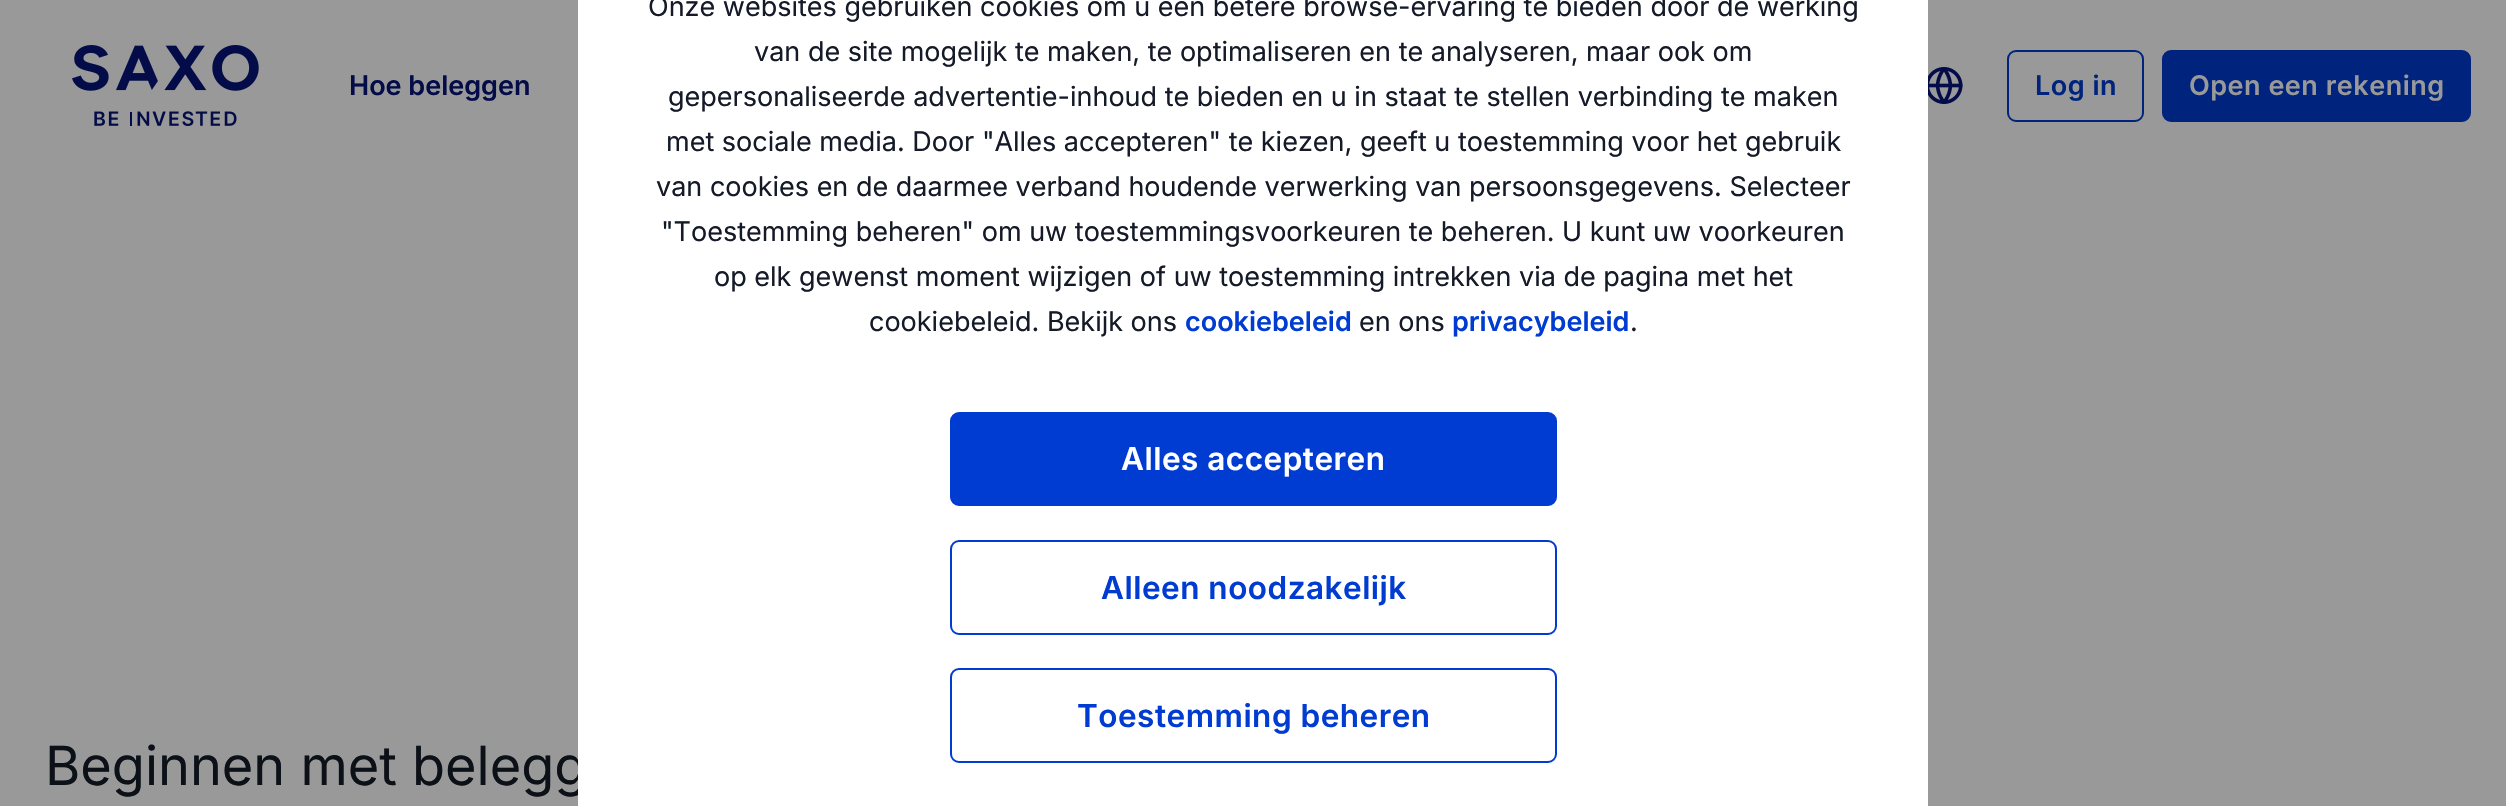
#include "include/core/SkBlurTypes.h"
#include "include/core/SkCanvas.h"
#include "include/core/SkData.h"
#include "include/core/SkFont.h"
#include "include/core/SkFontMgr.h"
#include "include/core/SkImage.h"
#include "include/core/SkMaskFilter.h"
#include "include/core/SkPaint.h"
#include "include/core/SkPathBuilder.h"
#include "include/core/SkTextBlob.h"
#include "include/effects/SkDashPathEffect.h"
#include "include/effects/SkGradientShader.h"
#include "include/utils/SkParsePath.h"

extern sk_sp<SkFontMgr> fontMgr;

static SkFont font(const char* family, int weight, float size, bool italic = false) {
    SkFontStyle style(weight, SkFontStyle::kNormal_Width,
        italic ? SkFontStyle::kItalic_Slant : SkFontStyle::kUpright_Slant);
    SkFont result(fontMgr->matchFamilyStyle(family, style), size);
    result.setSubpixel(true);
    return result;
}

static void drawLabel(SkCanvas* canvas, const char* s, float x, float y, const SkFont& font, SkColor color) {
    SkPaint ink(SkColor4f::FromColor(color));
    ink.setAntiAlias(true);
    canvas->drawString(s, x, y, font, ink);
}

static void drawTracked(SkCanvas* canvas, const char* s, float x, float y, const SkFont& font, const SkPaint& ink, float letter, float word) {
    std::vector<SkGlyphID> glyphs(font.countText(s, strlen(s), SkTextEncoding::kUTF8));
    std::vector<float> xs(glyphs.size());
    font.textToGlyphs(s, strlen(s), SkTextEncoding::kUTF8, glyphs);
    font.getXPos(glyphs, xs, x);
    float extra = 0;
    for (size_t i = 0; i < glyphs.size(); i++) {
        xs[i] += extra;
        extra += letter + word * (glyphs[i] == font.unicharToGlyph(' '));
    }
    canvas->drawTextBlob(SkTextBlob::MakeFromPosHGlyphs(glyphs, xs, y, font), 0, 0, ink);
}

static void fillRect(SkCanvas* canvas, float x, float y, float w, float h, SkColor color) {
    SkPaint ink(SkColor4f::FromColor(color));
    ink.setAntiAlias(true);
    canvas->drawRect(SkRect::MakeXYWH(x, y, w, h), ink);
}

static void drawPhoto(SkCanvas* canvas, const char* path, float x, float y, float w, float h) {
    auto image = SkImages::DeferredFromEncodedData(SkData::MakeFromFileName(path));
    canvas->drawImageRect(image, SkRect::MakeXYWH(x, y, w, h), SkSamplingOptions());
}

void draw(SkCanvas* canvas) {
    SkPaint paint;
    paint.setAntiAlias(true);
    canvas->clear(0xFF999999);
    SkFont font1 = font("Inter", 400, 54);
    drawLabel(canvas, "Beginnen met belegg", 45, 785, font1, 0xFF0C1017);
    fillRect(canvas, 578, 0, 1350, 806, 0xFFFFFFFF);
    SkFont font2 = font("Inter", 400, 27);
    drawLabel(canvas, "Onze websites gebruiken cookies om u een betere browse-ervaring te bieden door de werking", 648, 16, font2, 0xFF141A27);
    drawLabel(canvas, "van de site mogelijk te maken, te optimaliseren en te analyseren, maar ook om", 754, 61, font2, 0xFF141A27);
    drawLabel(canvas, "gepersonaliseerde advertentie-inhoud te bieden en u in staat te stellen verbinding te maken", 668, 106, font2, 0xFF141A27);
    drawLabel(canvas, "met sociale media. Door \"Alles accepteren\" te kiezen, geeft u toestemming voor het gebruik", 666, 151, font2, 0xFF141A27);
    drawLabel(canvas, "van cookies en de daarmee verband houdende verwerking van persoonsgegevens. Selecteer", 656, 196, font2, 0xFF141A27);
    drawLabel(canvas, "\"Toestemming beheren\" om uw toestemmingsvoorkeuren te beheren. U kunt uw voorkeuren", 661, 241, font2, 0xFF141A27);
    drawLabel(canvas, "op elk gewenst moment wijzigen of uw toestemming intrekken via de pagina met het", 714, 286, font2, 0xFF141A27);
    drawLabel(canvas, "cookiebeleid. Bekijk ons", 869, 331, font2, 0xFF141A27);
    SkFont font3 = font("Inter", 600, 27);
    drawLabel(canvas, "cookiebeleid", 1185, 331, font3, 0xFF003CD2);
    drawLabel(canvas, "en ons", 1359, 331, font2, 0xFF141A27);
    drawLabel(canvas, "privacybeleid", 1452, 331, font3, 0xFF003CD2);
    drawLabel(canvas, ".", 1630, 331, font2, 0xFF141A27);
    paint.setColor(0xFF003CD2);
    canvas->drawRoundRect(SkRect::MakeXYWH(951, 413, 605, 92), 8, 8, paint);
    paint.setStroke(true);
    paint.setStrokeWidth(2);
    canvas->drawRoundRect(SkRect::MakeXYWH(951, 413, 605, 92), 8, 8, paint);
    SkFont font4 = font("Inter", 600, 31.5f);
    paint.setStroke(false);
    paint.setColor(0xFFFFFFFF);
    drawTracked(canvas, "Alles accepteren", 1121, 470, font4, paint, 0.5f, 0);
    paint.setStroke(true);
    paint.setColor(0xFF003CD2);
    canvas->drawRoundRect(SkRect::MakeXYWH(951, 541, 605, 93), 8, 8, paint);
    paint.setStroke(false);
    drawTracked(canvas, "Alleen noodzakelijk", 1101, 599, font4, paint, 0.5f, 0);
    paint.setStroke(true);
    canvas->drawRoundRect(SkRect::MakeXYWH(951, 669, 605, 93), 8, 8, paint);
    paint.setStroke(false);
    drawTracked(canvas, "Toestemming beheren", 1077, 727, font4, paint, 0.5f, 0);
    drawPhoto(canvas, "assets/img1.png", 72, 45, 187, 81);
    drawLabel(canvas, "Hoe beleggen", 349, 95, font3, 0xFF030C48);
    drawPhoto(canvas, "assets/img2.png", 1928, 67, 35, 37);
    paint.setStroke(true);
    paint.setColor(0xFF00247E);
    canvas->drawRoundRect(SkRect::MakeXYWH(2008, 51, 135, 70), 8, 8, paint);
    paint.setStroke(false);
    drawTracked(canvas, "Log in", 2035, 95, font3, paint, 0.5f, 0);
    canvas->drawRoundRect(SkRect::MakeXYWH(2163, 51, 307, 70), 8, 8, paint);
    paint.setStroke(true);
    canvas->drawRoundRect(SkRect::MakeXYWH(2163, 51, 307, 70), 8, 8, paint);
    paint.setStroke(false);
    paint.setColor(0xFF999999);
    drawTracked(canvas, "Open een rekening", 2189, 95, font3, paint, 0.5f, 0);
}
